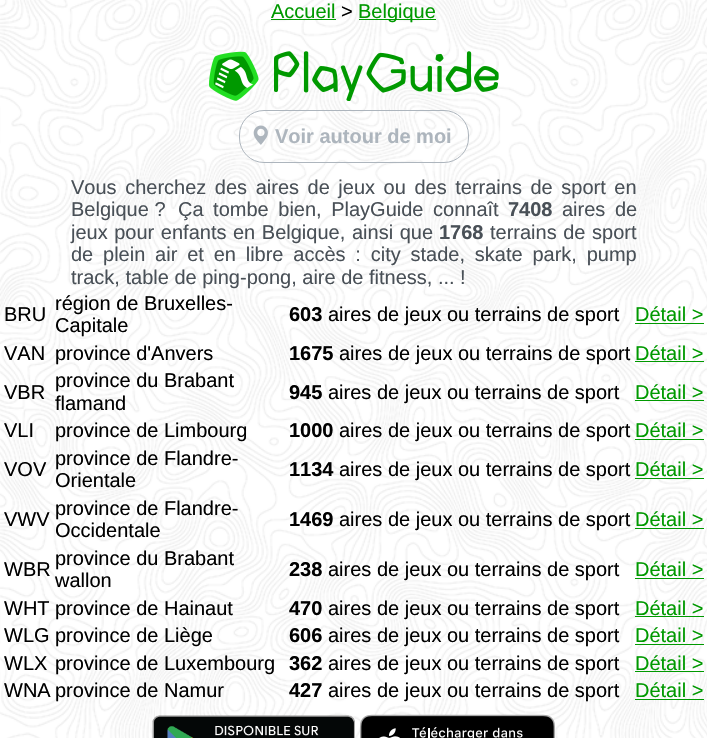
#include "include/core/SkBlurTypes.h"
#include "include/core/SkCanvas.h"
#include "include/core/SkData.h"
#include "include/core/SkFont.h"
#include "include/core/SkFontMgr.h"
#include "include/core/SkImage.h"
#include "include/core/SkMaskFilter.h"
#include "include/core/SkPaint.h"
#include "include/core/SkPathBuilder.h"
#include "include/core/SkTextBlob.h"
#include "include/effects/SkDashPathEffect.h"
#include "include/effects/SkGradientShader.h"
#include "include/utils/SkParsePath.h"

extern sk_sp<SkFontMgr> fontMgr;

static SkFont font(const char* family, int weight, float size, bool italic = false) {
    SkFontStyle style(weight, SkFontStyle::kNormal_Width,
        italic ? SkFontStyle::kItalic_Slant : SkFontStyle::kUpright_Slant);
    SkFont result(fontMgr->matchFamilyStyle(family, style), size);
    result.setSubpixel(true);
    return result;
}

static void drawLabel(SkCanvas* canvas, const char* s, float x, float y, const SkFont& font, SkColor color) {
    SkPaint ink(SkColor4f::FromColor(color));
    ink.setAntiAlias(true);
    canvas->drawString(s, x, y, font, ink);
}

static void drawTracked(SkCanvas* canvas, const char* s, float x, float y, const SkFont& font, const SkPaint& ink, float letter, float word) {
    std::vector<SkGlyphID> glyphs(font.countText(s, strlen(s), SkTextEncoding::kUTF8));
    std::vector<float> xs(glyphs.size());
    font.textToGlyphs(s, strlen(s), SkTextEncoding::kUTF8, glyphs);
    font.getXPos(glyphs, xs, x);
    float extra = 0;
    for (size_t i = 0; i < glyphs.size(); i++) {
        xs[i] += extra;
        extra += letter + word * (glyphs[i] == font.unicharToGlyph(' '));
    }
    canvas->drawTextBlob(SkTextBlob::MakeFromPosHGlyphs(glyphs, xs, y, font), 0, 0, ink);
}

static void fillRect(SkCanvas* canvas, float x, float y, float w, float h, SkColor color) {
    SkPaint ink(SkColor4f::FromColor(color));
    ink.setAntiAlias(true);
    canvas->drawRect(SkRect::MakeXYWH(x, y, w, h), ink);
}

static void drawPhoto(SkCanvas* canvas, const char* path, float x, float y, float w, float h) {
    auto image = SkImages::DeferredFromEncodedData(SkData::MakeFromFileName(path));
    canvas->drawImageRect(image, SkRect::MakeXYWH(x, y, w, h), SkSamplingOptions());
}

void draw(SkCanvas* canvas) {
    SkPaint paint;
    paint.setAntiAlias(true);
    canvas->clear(0xFFFFFFFF);
    drawPhoto(canvas, "assets/img1.png", 0, 0, 707, 738);
    SkFont font1 = font("Liberation Sans", 400, 20);
    drawLabel(canvas, "Accueil", 271, 18, font1, 0xFF009900);
    fillRect(canvas, 271, 19, 65, 1, 0xFF009900);
    drawLabel(canvas, ">", 341, 18, font1, 0xFF000000);
    fillRect(canvas, 359, 19, 77, 1, 0xFF009900);
    drawLabel(canvas, "Belgique", 358, 18, font1, 0xFF009900);
    drawPhoto(canvas, "assets/img2.png", 209, 51, 50, 50);
    drawPhoto(canvas, "assets/img3.png", 274, 51, 225, 50);
    paint.setStroke(true);
    paint.setStrokeWidth(1);
    paint.setColor(0xFFADB5BD);
    canvas->drawRoundRect(SkRect::MakeXYWH(239.5f, 110.5f, 229, 52), 24.5f, 24.5f, paint);
    drawPhoto(canvas, "assets/img4.png", 253, 125, 15, 20);
    SkFont font2 = font("Liberation Sans", 700, 20);
    drawLabel(canvas, "Voir autour de moi", 275, 143, font2, 0xFFADB5BD);
    paint.setStroke(false);
    paint.setColor(0xFF495057);
    drawTracked(canvas, "Vous cherchez des aires de jeux ou des terrains de sport en", 71, 194, font1, paint, 0, 3);
    drawLabel(canvas, "Belgique ?", 71, 216, font1, 0xFF495057);
    drawTracked(canvas, "Ça tombe bien, PlayGuide connaît", 178, 216, font1, paint, 0, 4);
    drawLabel(canvas, "7408", 508, 216, font2, 0xFF495057);
    drawTracked(canvas, "aires de", 562, 216, font1, paint, 0, 4);
    drawTracked(canvas, "jeux pour enfants en Belgique,", 71, 239, font1, paint, 0, 1);
    drawTracked(canvas, "ainsi que", 352, 239, font1, paint, 0, 1);
    drawLabel(canvas, "1768", 439, 239, font2, 0xFF495057);
    drawTracked(canvas, "terrains de sport", 490, 239, font1, paint, 0, 1);
    drawTracked(canvas, "de plein air et en libre accès : city stade, skate park, pump", 71, 261, font1, paint, 0, 4.25f);
    drawLabel(canvas, "track, table de ping-pong, aire de fitness, ... !", 71, 284, font1, 0xFF495057);
    drawLabel(canvas, "BRU", 4, 321, font1, 0xFF000000);
    drawLabel(canvas, "région de Bruxelles-", 55, 310, font1, 0xFF000000);
    drawLabel(canvas, "Capitale", 55, 332, font1, 0xFF000000);
    drawLabel(canvas, "603", 289, 321, font2, 0xFF000000);
    drawLabel(canvas, "aires de jeux ou terrains de sport", 328, 321, font1, 0xFF000000);
    drawLabel(canvas, "Détail >", 635, 321, font1, 0xFF009900);
    fillRect(canvas, 635, 323, 69, 1, 0xFF009900);
    drawLabel(canvas, "VAN", 4, 360, font1, 0xFF000000);
    drawLabel(canvas, "province d'Anvers", 55, 360, font1, 0xFF000000);
    drawLabel(canvas, "1675", 289, 360, font2, 0xFF000000);
    drawLabel(canvas, "aires de jeux ou terrains de sport", 339, 360, font1, 0xFF000000);
    drawLabel(canvas, "Détail >", 635, 360, font1, 0xFF009900);
    fillRect(canvas, 635, 361, 69, 1, 0xFF009900);
    drawLabel(canvas, "VBR", 4, 399, font1, 0xFF000000);
    drawLabel(canvas, "province du Brabant", 55, 387, font1, 0xFF000000);
    drawLabel(canvas, "flamand", 55, 410, font1, 0xFF000000);
    drawLabel(canvas, "945", 289, 399, font2, 0xFF000000);
    drawLabel(canvas, "aires de jeux ou terrains de sport", 328, 399, font1, 0xFF000000);
    drawLabel(canvas, "Détail >", 635, 399, font1, 0xFF009900);
    fillRect(canvas, 635, 400, 69, 1, 0xFF009900);
    drawLabel(canvas, "VLI", 4, 437, font1, 0xFF000000);
    drawLabel(canvas, "province de Limbourg", 55, 437, font1, 0xFF000000);
    drawLabel(canvas, "1000", 289, 437, font2, 0xFF000000);
    drawLabel(canvas, "aires de jeux ou terrains de sport", 339, 437, font1, 0xFF000000);
    drawLabel(canvas, "Détail >", 635, 437, font1, 0xFF009900);
    fillRect(canvas, 635, 439, 69, 1, 0xFF009900);
    drawLabel(canvas, "VOV", 4, 476, font1, 0xFF000000);
    drawLabel(canvas, "province de Flandre-", 55, 465, font1, 0xFF000000);
    drawLabel(canvas, "Orientale", 55, 487, font1, 0xFF000000);
    drawLabel(canvas, "1134", 289, 476, font2, 0xFF000000);
    drawLabel(canvas, "aires de jeux ou terrains de sport", 339, 476, font1, 0xFF000000);
    drawLabel(canvas, "Détail >", 635, 476, font1, 0xFF009900);
    fillRect(canvas, 635, 478, 69, 1, 0xFF009900);
    drawLabel(canvas, "VWV", 4, 526, font1, 0xFF000000);
    drawLabel(canvas, "province de Flandre-", 55, 515, font1, 0xFF000000);
    drawLabel(canvas, "Occidentale", 55, 537, font1, 0xFF000000);
    drawLabel(canvas, "1469", 289, 526, font2, 0xFF000000);
    drawLabel(canvas, "aires de jeux ou terrains de sport", 339, 526, font1, 0xFF000000);
    drawLabel(canvas, "Détail >", 635, 526, font1, 0xFF009900);
    fillRect(canvas, 635, 528, 69, 1, 0xFF009900);
    drawLabel(canvas, "WBR", 4, 576, font1, 0xFF000000);
    drawLabel(canvas, "province du Brabant", 55, 565, font1, 0xFF000000);
    drawLabel(canvas, "wallon", 55, 587, font1, 0xFF000000);
    drawLabel(canvas, "238", 289, 576, font2, 0xFF000000);
    drawLabel(canvas, "aires de jeux ou terrains de sport", 328, 576, font1, 0xFF000000);
    drawLabel(canvas, "Détail >", 635, 576, font1, 0xFF009900);
    fillRect(canvas, 635, 578, 69, 1, 0xFF009900);
    drawLabel(canvas, "WHT", 4, 615, font1, 0xFF000000);
    drawLabel(canvas, "province de Hainaut", 55, 615, font1, 0xFF000000);
    drawLabel(canvas, "470", 289, 615, font2, 0xFF000000);
    drawLabel(canvas, "aires de jeux ou terrains de sport", 328, 615, font1, 0xFF000000);
    drawLabel(canvas, "Détail >", 635, 615, font1, 0xFF009900);
    fillRect(canvas, 635, 616, 69, 1, 0xFF009900);
    drawLabel(canvas, "WLG", 4, 642, font1, 0xFF000000);
    drawLabel(canvas, "province de Liège", 55, 642, font1, 0xFF000000);
    drawLabel(canvas, "606", 289, 642, font2, 0xFF000000);
    drawLabel(canvas, "aires de jeux ou terrains de sport", 328, 642, font1, 0xFF000000);
    drawLabel(canvas, "Détail >", 635, 642, font1, 0xFF009900);
    fillRect(canvas, 635, 644, 69, 1, 0xFF009900);
    drawLabel(canvas, "WLX", 4, 670, font1, 0xFF000000);
    drawLabel(canvas, "province de Luxembourg", 55, 670, font1, 0xFF000000);
    drawLabel(canvas, "362", 289, 670, font2, 0xFF000000);
    drawLabel(canvas, "aires de jeux ou terrains de sport", 328, 670, font1, 0xFF000000);
    drawLabel(canvas, "Détail >", 635, 670, font1, 0xFF009900);
    fillRect(canvas, 635, 671, 69, 1, 0xFF009900);
    drawLabel(canvas, "WNA", 4, 697, font1, 0xFF000000);
    drawLabel(canvas, "province de Namur", 55, 697, font1, 0xFF000000);
    drawLabel(canvas, "427", 289, 697, font2, 0xFF000000);
    drawLabel(canvas, "aires de jeux ou terrains de sport", 328, 697, font1, 0xFF000000);
    drawLabel(canvas, "Détail >", 635, 697, font1, 0xFF009900);
    fillRect(canvas, 635, 699, 69, 1, 0xFF009900);
    drawPhoto(canvas, "assets/img5.png", 152, 715, 203, 23);
    drawPhoto(canvas, "assets/img6.png", 360, 714, 195, 24);
}
